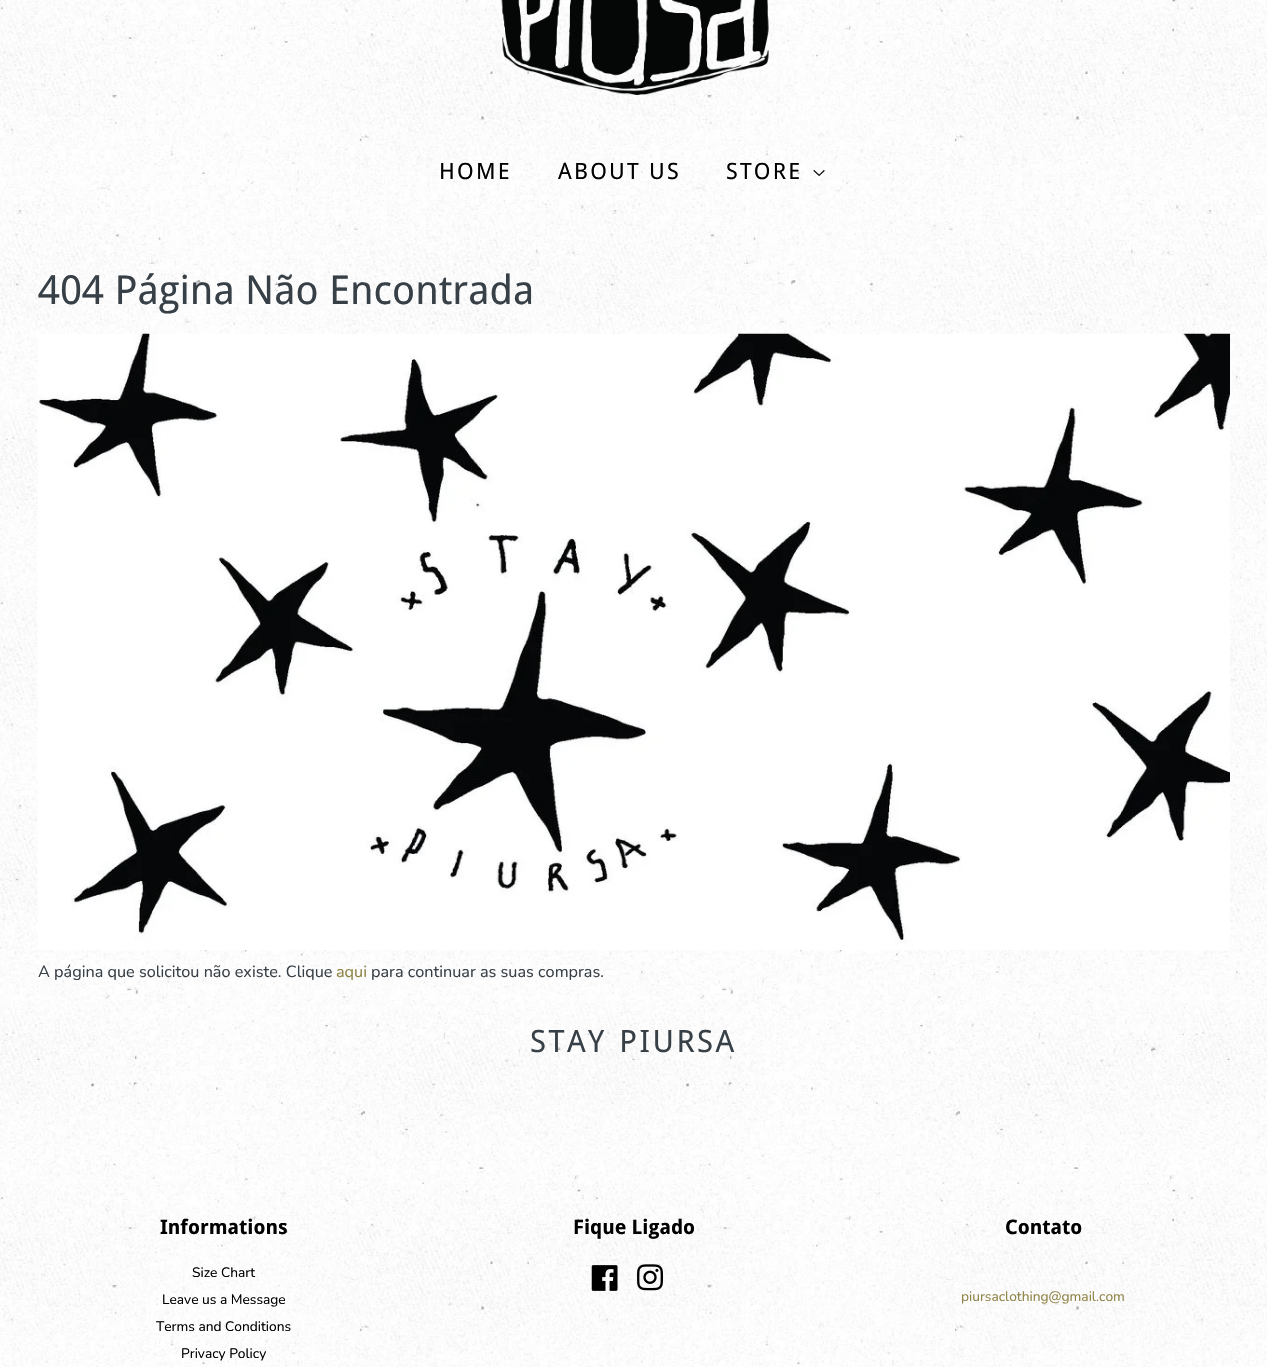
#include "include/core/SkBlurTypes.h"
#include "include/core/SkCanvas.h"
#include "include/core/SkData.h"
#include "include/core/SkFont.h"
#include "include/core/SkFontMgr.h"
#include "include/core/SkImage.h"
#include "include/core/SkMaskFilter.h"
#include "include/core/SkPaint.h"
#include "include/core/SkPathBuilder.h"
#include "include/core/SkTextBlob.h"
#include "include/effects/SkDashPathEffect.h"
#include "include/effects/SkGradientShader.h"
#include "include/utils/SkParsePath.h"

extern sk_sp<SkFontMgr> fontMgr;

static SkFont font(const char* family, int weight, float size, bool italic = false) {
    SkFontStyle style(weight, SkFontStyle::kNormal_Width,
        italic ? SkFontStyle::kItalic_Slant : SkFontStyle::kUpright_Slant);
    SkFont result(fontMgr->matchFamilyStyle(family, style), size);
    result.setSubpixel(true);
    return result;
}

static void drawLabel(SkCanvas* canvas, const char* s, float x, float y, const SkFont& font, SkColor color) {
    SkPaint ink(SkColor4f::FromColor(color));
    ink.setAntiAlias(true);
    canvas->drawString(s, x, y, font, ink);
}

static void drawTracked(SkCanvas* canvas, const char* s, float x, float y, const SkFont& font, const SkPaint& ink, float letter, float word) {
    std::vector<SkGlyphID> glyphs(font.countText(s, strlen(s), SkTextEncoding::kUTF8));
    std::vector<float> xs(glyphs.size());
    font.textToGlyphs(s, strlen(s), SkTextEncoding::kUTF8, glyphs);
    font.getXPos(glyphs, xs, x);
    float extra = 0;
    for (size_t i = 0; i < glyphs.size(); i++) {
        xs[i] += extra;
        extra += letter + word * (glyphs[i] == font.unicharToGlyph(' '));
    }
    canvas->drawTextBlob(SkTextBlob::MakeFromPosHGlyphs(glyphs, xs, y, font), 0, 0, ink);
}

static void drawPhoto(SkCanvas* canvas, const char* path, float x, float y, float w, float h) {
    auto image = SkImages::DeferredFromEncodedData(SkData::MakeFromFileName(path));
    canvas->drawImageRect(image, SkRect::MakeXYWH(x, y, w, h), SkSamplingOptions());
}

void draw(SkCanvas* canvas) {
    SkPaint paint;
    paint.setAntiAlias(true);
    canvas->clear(0xFFFFFFFF);
    drawPhoto(canvas, "assets/img1.png", 0, 0, 1267, 1367);
    drawPhoto(canvas, "assets/img2.png", 501, 0, 268, 95);
    SkFont font1 = font("Droid Sans", 400, 22.5f);
    paint.setColor(0xFF000000);
    drawTracked(canvas, "HOME", 439, 179, font1, paint, 2.25f, 0);
    drawTracked(canvas, "ABOUT US", 558, 179, font1, paint, 2.25f, 0);
    drawTracked(canvas, "STORE", 726, 179, font1, paint, 2.25f, 0);
    drawPhoto(canvas, "assets/img3.png", 813, 170, 12, 7);
    SkFont font2 = font("Droid Sans", 400, 40);
    drawLabel(canvas, "404 Página Não Encontrada", 38, 304, font2, 0xFF384047);
    drawPhoto(canvas, "assets/img4.png", 37, 333, 1193, 617);
    SkFont font3 = font("Nunito", 400, 16.25f);
    drawLabel(canvas, "A página que solicitou não existe. Clique", 38, 977, font3, 0xFF384047);
    drawLabel(canvas, "aqui", 336, 977, font3, 0xFF8E8345);
    drawLabel(canvas, "para continuar as suas compras.", 371, 977, font3, 0xFF384047);
    SkFont font4 = font("Droid Sans", 400, 30.75f);
    paint.setColor(0xFF384047);
    drawTracked(canvas, "STAY PIURSA", 530, 1052, font4, paint, 2.5f, 2);
    SkFont font5 = font("Droid Sans", 700, 20);
    drawLabel(canvas, "Informations", 160, 1234, font5, 0xFF000000);
    SkFont font6 = font("Nunito", 400, 13.75f);
    drawLabel(canvas, "Size Chart", 192, 1277, font6, 0xFF000000);
    drawLabel(canvas, "Leave us a Message", 162, 1304, font6, 0xFF000000);
    drawLabel(canvas, "Terms and Conditions", 156, 1331, font6, 0xFF000000);
    drawLabel(canvas, "Privacy Policy", 181, 1358, font6, 0xFF000000);
    drawLabel(canvas, "Fique Ligado", 573, 1234, font5, 0xFF000000);
    drawPhoto(canvas, "assets/img5.png", 591, 1265, 27, 26);
    drawPhoto(canvas, "assets/img6.png", 637, 1264, 26, 27);
    drawLabel(canvas, "Contato", 1005, 1234, font5, 0xFF000000);
    drawLabel(canvas, "piursaclothing@gmail.com", 961, 1301, font6, 0xFF8E8345);
}
